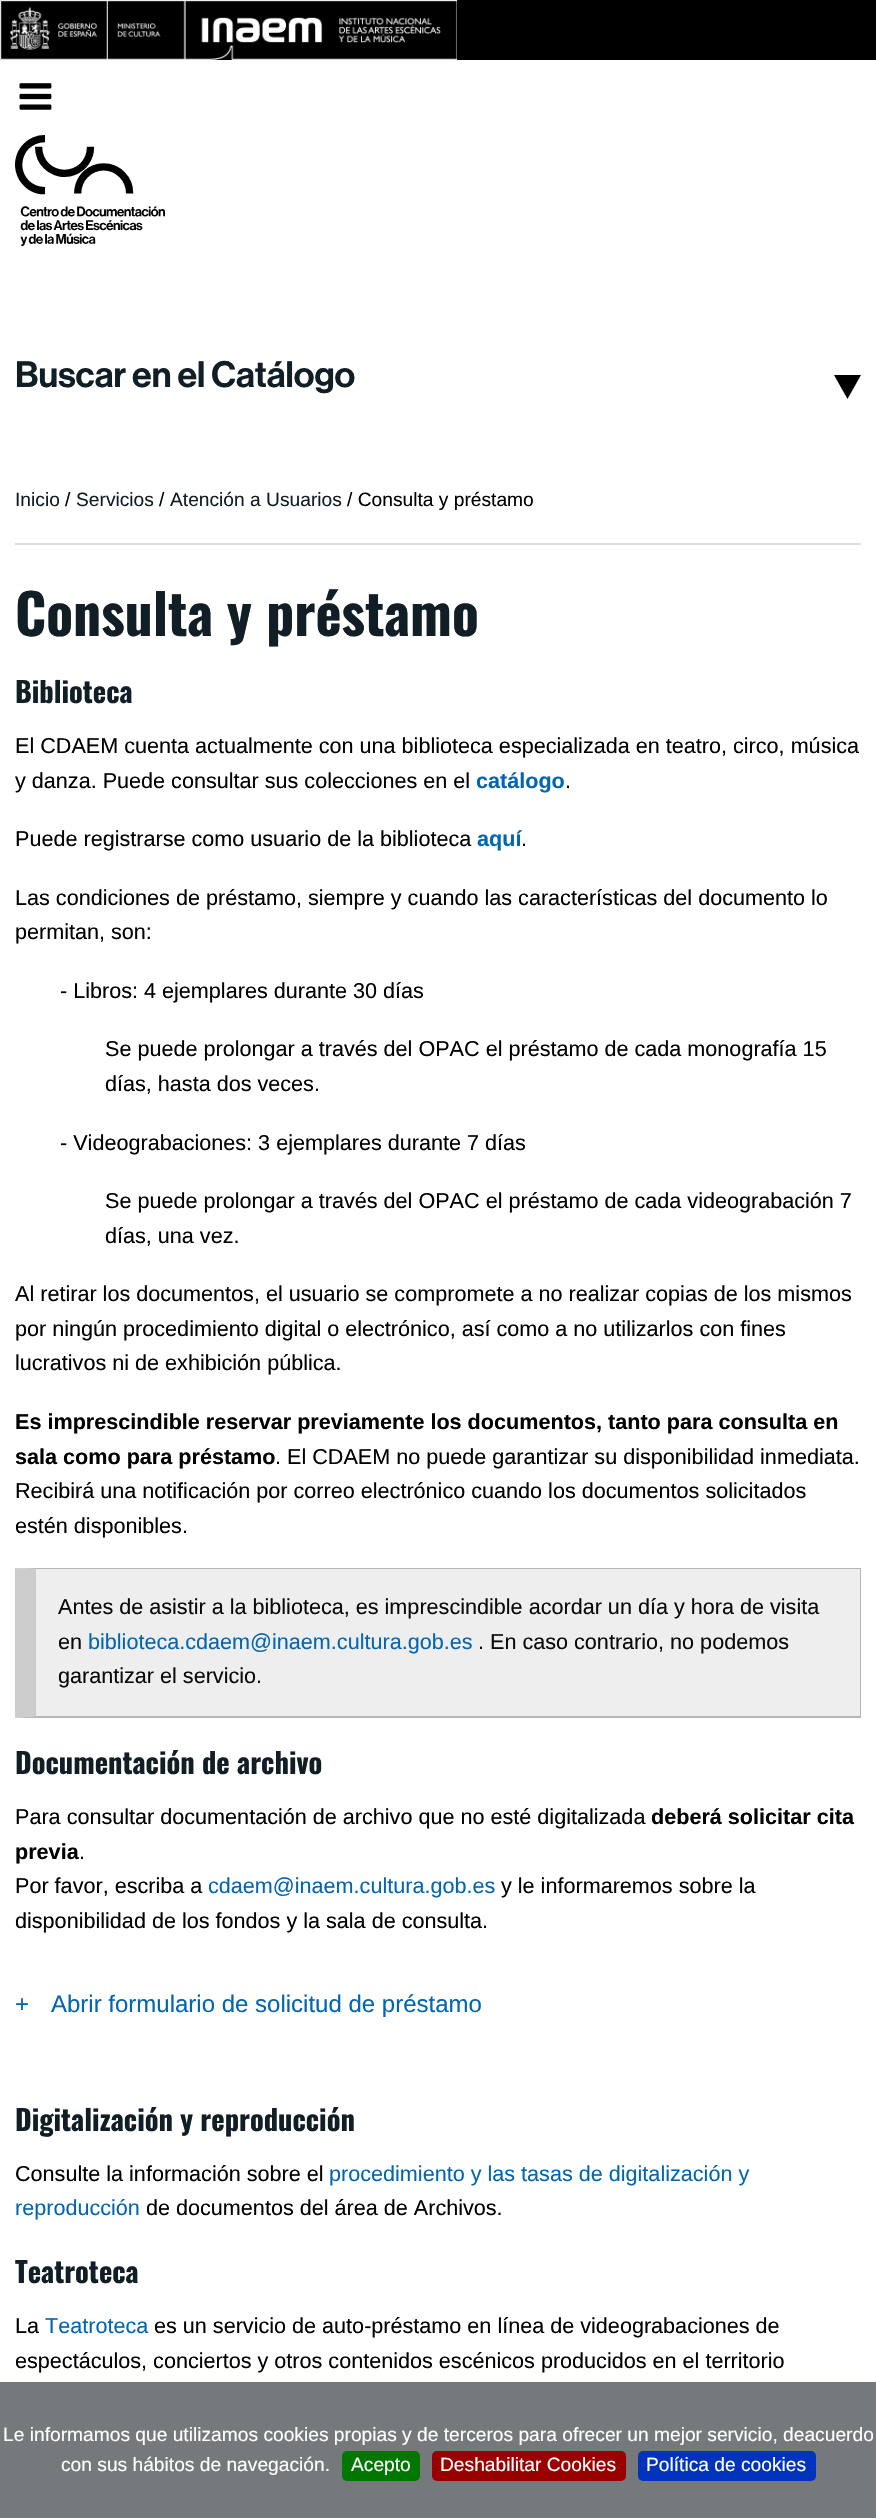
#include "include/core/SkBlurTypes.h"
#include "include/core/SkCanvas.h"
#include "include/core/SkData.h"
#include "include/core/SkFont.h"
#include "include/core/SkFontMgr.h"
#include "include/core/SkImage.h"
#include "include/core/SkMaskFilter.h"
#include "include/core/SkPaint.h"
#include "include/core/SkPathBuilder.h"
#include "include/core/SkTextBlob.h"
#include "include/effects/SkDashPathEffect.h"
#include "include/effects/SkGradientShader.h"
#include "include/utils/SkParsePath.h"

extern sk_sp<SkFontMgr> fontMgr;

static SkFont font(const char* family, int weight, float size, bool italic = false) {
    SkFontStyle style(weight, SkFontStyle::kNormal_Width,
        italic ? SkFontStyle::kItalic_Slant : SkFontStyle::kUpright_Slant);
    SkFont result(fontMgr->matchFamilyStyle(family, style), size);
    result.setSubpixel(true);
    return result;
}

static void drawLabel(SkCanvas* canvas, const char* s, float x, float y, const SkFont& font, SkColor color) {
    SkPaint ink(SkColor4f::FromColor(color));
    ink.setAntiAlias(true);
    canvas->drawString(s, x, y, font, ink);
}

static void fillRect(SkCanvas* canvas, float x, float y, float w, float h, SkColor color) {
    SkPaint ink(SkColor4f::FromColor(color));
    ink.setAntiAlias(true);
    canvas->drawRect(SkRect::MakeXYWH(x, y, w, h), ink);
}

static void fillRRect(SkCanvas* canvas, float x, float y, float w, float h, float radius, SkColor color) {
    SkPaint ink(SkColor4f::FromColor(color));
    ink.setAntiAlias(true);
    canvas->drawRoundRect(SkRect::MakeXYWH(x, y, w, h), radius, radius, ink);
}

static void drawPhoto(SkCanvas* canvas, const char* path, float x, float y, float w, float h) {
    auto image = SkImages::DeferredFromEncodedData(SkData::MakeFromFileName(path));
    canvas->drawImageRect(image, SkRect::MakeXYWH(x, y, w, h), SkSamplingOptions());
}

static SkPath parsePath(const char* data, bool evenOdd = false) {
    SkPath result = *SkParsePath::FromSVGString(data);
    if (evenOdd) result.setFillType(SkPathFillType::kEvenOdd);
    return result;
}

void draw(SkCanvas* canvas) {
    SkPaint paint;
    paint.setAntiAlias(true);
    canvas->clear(0xFFFFFFFF);
    fillRect(canvas, 0, 0, 876, 60, 0xFF000000);
    drawPhoto(canvas, "assets/img1.png", 0, 0, 457, 60);
    drawPhoto(canvas, "assets/img2.png", 19, 83, 33, 27);
    drawPhoto(canvas, "assets/img3.png", 15, 135, 150, 111);
    SkFont font1 = font("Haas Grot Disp", 500, 36);
    drawLabel(canvas, "Buscar en el Catálogo", 15, 387, font1, 0xFF111E26);
    paint.setColor(0xFF000000);
    canvas->drawPath(parsePath("M834 375H861L847.5 399Z"), paint);
    fillRect(canvas, 15, 543, 846, 2, 0xFFDEDEDE);
    SkFont font2 = font("Liberation Sans", 400, 19.2f);
    drawLabel(canvas, "Inicio", 15, 506, font2, 0xFF111E26);
    drawLabel(canvas, "/", 65, 506, font2, 0xFF000000);
    drawLabel(canvas, "Servicios", 76, 506, font2, 0xFF111E26);
    drawLabel(canvas, "/", 159, 506, font2, 0xFF000000);
    drawLabel(canvas, "Atención a Usuarios", 170, 506, font2, 0xFF111E26);
    drawLabel(canvas, "/ Consulta y préstamo", 347, 506, font2, 0xFF000000);
    SkFont font3 = font("Oswald", 700, 55.5f);
    drawLabel(canvas, "Consulta y préstamo", 15, 636, font3, 0xFF111E26);
    SkFont font4 = font("Oswald", 700, 28.5f);
    drawLabel(canvas, "Biblioteca", 15, 703, font4, 0xFF111E26);
    SkFont font5 = font("Liberation Sans", 400, 21.6f);
    drawLabel(canvas, "El CDAEM cuenta actualmente con una biblioteca especializada en teatro, circo, música", 15, 753, font5, 0xFF000000);
    drawLabel(canvas, "y danza. Puede consultar sus colecciones en el", 15, 788, font5, 0xFF000000);
    SkFont font6 = font("Liberation Sans", 700, 21.6f);
    drawLabel(canvas, "catálogo", 476, 788, font6, 0xFF0466B1);
    drawLabel(canvas, ".", 565, 788, font5, 0xFF000000);
    drawLabel(canvas, "Puede registrarse como usuario de la biblioteca", 15, 846, font5, 0xFF000000);
    drawLabel(canvas, "aquí", 477, 846, font6, 0xFF0466B1);
    drawLabel(canvas, ".", 521, 846, font5, 0xFF000000);
    drawLabel(canvas, "Las condiciones de préstamo, siempre y cuando las características del documento lo", 15, 905, font5, 0xFF000000);
    drawLabel(canvas, "permitan, son:", 15, 939, font5, 0xFF000000);
    drawLabel(canvas, "- Libros: 4 ejemplares durante 30 días", 60, 998, font5, 0xFF000000);
    drawLabel(canvas, "Se puede prolongar a través del OPAC el préstamo de cada monografía 15", 105, 1056, font5, 0xFF000000);
    drawLabel(canvas, "días, hasta dos veces.", 105, 1091, font5, 0xFF000000);
    drawLabel(canvas, "- Videograbaciones: 3 ejemplares durante 7 días", 60, 1150, font5, 0xFF000000);
    drawLabel(canvas, "Se puede prolongar a través del OPAC el préstamo de cada videograbación 7", 105, 1208, font5, 0xFF000000);
    drawLabel(canvas, "días, una vez.", 105, 1243, font5, 0xFF000000);
    drawLabel(canvas, "Al retirar los documentos, el usuario se compromete a no realizar copias de los mismos", 15, 1301, font5, 0xFF000000);
    drawLabel(canvas, "por ningún procedimiento digital o electrónico, así como a no utilizarlos con fines", 15, 1336, font5, 0xFF000000);
    drawLabel(canvas, "lucrativos ni de exhibición pública.", 15, 1370, font5, 0xFF000000);
    drawLabel(canvas, "Es imprescindible reservar previamente los documentos, tanto para consulta en", 15, 1429, font6, 0xFF000000);
    drawLabel(canvas, "sala como para préstamo", 15, 1464, font6, 0xFF000000);
    drawLabel(canvas, ". El CDAEM no puede garantizar su disponibilidad inmediata.", 275, 1464, font5, 0xFF000000);
    drawLabel(canvas, "Recibirá una notificación por correo electrónico cuando los documentos solicitados", 15, 1498, font5, 0xFF000000);
    drawLabel(canvas, "estén disponibles.", 15, 1533, font5, 0xFF000000);
    fillRect(canvas, 15, 1568, 846, 150, 0xFFEEEEEE);
    paint.setColor(0xFFB5B5B5);
    canvas->drawPath(parsePath("M15 1568H861L860 1569H36Z"), paint);
    paint.setColor(0x400A0A0A);
    canvas->drawPath(parsePath("M861 1568V1718L860 1716V1569Z"), paint);
    canvas->drawPath(parsePath("M861 1718H15L36 1716H860Z"), paint);
    paint.setColor(0xFFCCCCCC);
    canvas->drawPath(parsePath("M15 1718V1568L36 1569V1716Z"), paint);
    drawLabel(canvas, "Antes de asistir a la biblioteca, es imprescindible acordar un día y hora de visita", 58, 1614, font5, 0xFF0A0A0A);
    drawLabel(canvas, "en", 58, 1649, font5, 0xFF0A0A0A);
    drawLabel(canvas, "biblioteca.cdaem@inaem.cultura.gob.es", 88, 1649, font5, 0xFF0466B1);
    drawLabel(canvas, ". En caso contrario, no podemos", 478, 1649, font5, 0xFF0A0A0A);
    drawLabel(canvas, "garantizar el servicio.", 58, 1683, font5, 0xFF0A0A0A);
    drawLabel(canvas, "Documentación de archivo", 15, 1774, font4, 0xFF111E26);
    drawLabel(canvas, "Para consultar documentación de archivo que no esté digitalizada", 15, 1824, font5, 0xFF000000);
    drawLabel(canvas, "deberá solicitar cita", 651, 1824, font6, 0xFF000000);
    drawLabel(canvas, "previa", 15, 1859, font6, 0xFF000000);
    drawLabel(canvas, ".", 79, 1859, font5, 0xFF000000);
    drawLabel(canvas, "Por favor, escriba a", 15, 1893, font5, 0xFF000000);
    drawLabel(canvas, "cdaem@inaem.cultura.gob.es", 208, 1893, font5, 0xFF0466B1);
    drawLabel(canvas, "y le informaremos sobre la", 501, 1893, font5, 0xFF000000);
    drawLabel(canvas, "disponibilidad de los fondos y la sala de consulta.", 15, 1928, font5, 0xFF000000);
    SkFont font7 = font("Liberation Sans", 400, 24);
    drawLabel(canvas, "+", 15, 2012, font7, 0xFF0466B1);
    drawLabel(canvas, "Abrir formulario de solicitud de préstamo", 51, 2012, font7, 0xFF0466B1);
    drawLabel(canvas, "Digitalización y reproducción", 15, 2131, font4, 0xFF111E26);
    drawLabel(canvas, "Consulte la información sobre el", 15, 2181, font5, 0xFF000000);
    drawLabel(canvas, "procedimiento y las tasas de digitalización y", 329, 2181, font5, 0xFF0466B1);
    drawLabel(canvas, "reproducción", 15, 2215, font5, 0xFF0466B1);
    drawLabel(canvas, "de documentos del área de Archivos.", 146, 2215, font5, 0xFF000000);
    drawLabel(canvas, "Teatroteca", 15, 2283, font4, 0xFF111E26);
    drawLabel(canvas, "La", 15, 2333, font5, 0xFF000000);
    drawLabel(canvas, "Teatroteca", 45, 2333, font5, 0xFF0466B1);
    drawLabel(canvas, "es un servicio de auto-préstamo en línea de videograbaciones de", 154, 2333, font5, 0xFF000000);
    drawLabel(canvas, "espectáculos, conciertos y otros contenidos escénicos producidos en el territorio", 15, 2368, font5, 0xFF000000);
    fillRect(canvas, 0, 2382, 876, 136, 0xFF76797C);
    drawLabel(canvas, "Le informamos que utilizamos cookies propias y de terceros para ofrecer un mejor servicio, deacuerdo", 3, 2441, font2, 0xFFFFFFFF);
    drawLabel(canvas, "con sus hábitos de navegación.", 61, 2471, font2, 0xFFFFFFFF);
    fillRRect(canvas, 342, 2451, 78, 30, 5, 0xFF007700);
    drawLabel(canvas, "Acepto", 351, 2471, font2, 0xFFFFFFFF);
    fillRRect(canvas, 432, 2451, 194, 30, 5, 0xFF990000);
    drawLabel(canvas, "Deshabilitar Cookies", 440, 2471, font2, 0xFFFFFFFF);
    fillRRect(canvas, 638, 2451, 178, 30, 5, 0xFF0033BB);
    drawLabel(canvas, "Política de cookies", 646, 2471, font2, 0xFFFFFFFF);
}
